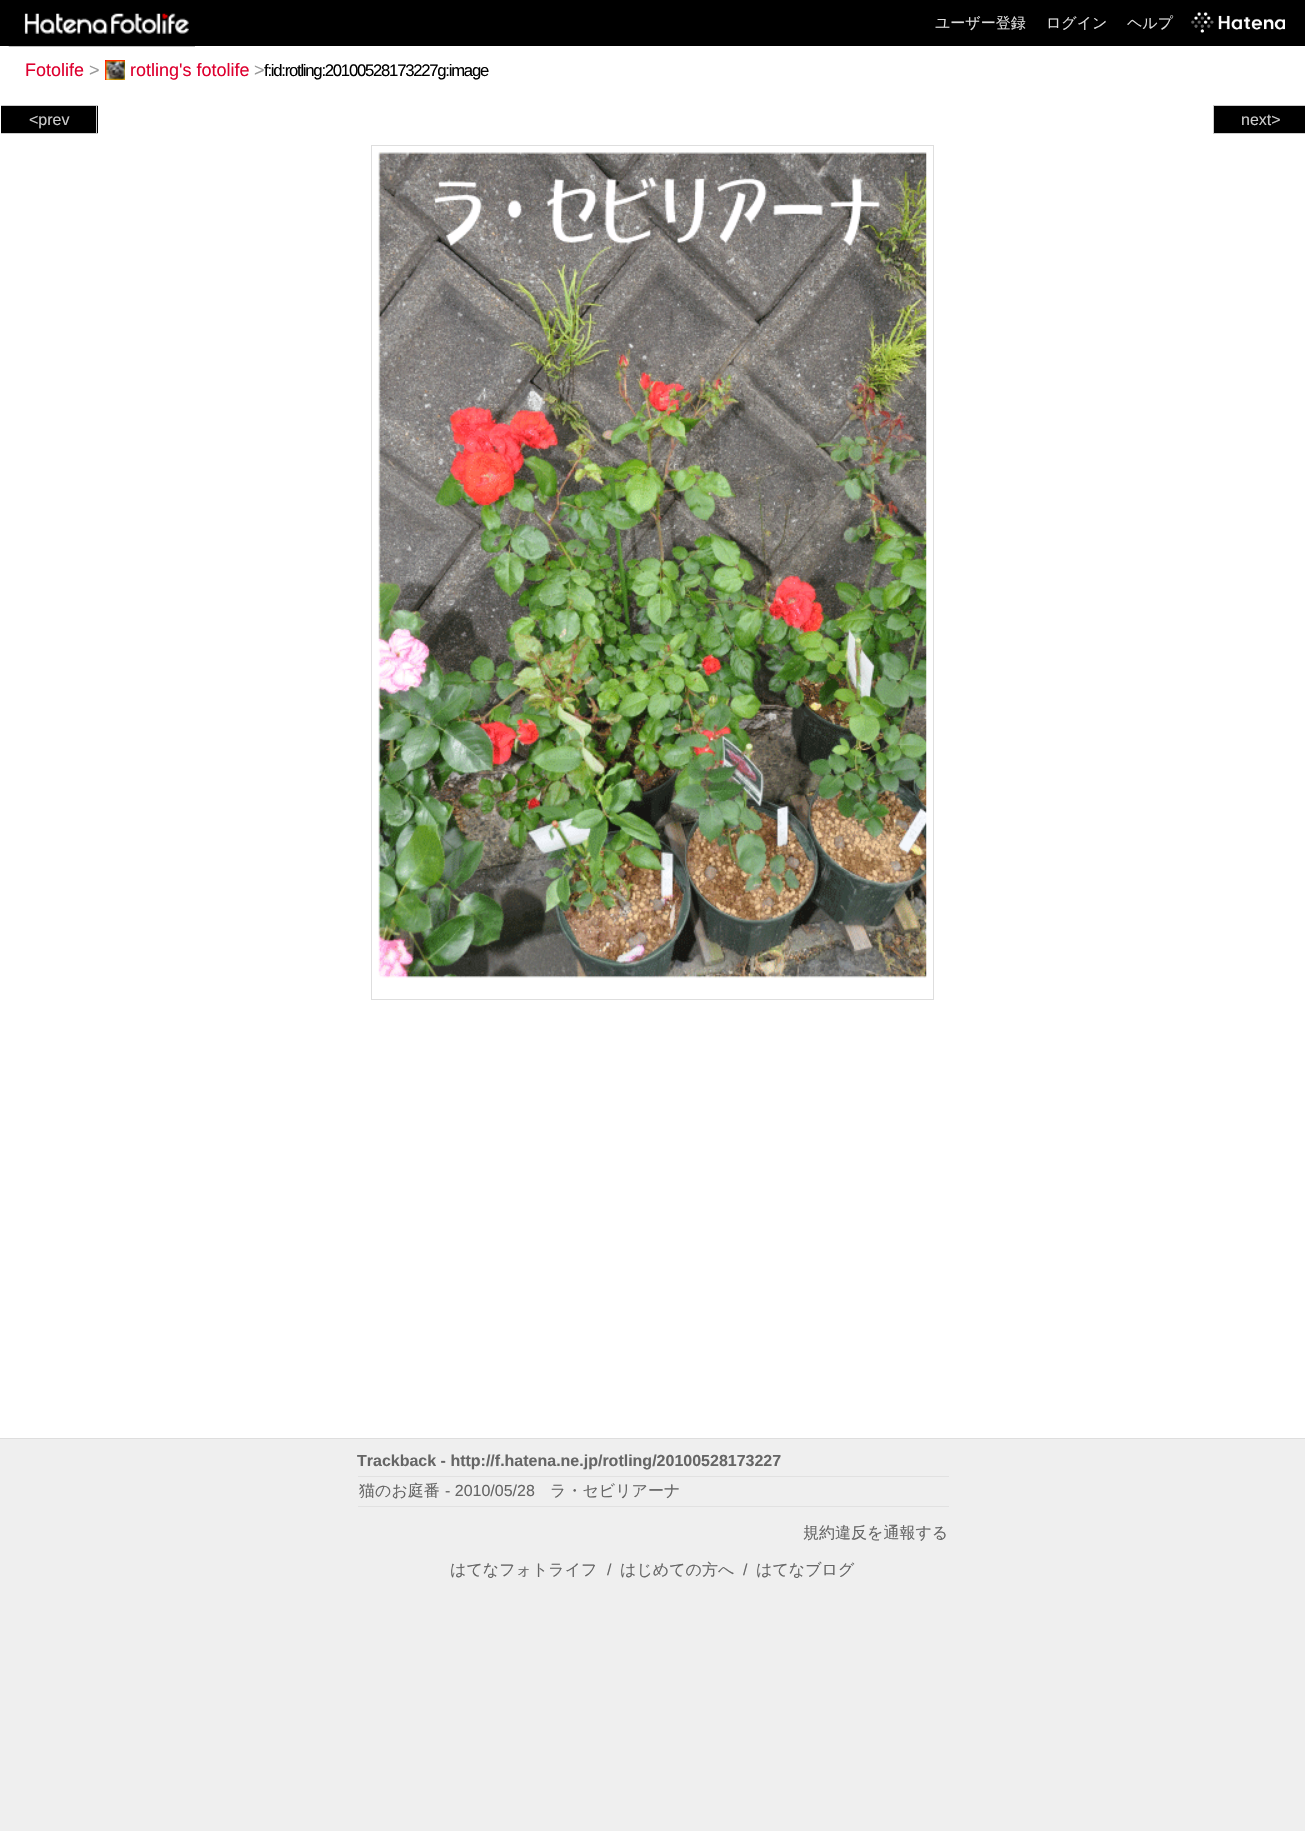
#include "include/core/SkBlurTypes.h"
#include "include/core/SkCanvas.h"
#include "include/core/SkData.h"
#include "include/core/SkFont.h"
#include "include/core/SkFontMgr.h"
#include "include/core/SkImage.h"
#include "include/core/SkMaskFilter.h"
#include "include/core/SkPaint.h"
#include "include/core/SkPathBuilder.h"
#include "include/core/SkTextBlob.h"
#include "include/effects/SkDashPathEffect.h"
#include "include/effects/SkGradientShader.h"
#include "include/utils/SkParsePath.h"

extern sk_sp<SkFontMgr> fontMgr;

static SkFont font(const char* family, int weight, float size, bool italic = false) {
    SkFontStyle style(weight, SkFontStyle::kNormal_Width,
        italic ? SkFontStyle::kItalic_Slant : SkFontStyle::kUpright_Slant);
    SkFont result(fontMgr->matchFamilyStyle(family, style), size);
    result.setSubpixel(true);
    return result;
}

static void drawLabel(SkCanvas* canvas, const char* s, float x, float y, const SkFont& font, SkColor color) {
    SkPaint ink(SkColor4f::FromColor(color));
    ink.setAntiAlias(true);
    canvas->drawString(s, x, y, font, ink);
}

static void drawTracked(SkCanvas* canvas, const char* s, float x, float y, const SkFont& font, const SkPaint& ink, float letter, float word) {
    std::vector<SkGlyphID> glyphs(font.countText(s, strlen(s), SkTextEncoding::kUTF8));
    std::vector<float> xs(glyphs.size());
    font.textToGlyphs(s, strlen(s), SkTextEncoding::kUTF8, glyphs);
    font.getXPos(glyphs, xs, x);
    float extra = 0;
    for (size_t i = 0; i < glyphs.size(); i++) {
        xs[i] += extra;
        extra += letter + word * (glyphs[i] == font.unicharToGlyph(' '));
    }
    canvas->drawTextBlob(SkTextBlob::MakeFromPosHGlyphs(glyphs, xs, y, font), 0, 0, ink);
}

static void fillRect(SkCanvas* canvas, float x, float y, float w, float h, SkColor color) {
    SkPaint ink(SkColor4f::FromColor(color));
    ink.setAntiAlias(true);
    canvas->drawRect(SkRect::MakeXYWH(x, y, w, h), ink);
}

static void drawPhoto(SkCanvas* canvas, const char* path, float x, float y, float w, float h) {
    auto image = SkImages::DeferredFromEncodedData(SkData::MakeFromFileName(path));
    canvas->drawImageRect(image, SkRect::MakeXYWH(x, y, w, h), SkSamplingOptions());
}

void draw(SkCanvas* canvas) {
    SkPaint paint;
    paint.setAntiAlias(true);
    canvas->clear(0xFFEFEFEF);
    fillRect(canvas, 0, 0, 1305, 46, 0xFF000000);
    fillRect(canvas, 0, 46, 1305, 1392, 0xFFFFFFFF);
    drawPhoto(canvas, "assets/img1.png", 8, 13, 104, 34);
    drawPhoto(canvas, "assets/img2.png", 111, 13, 84, 34);
    SkFont font1 = font("WenQuanYi Zen Hei", 500, 15);
    drawLabel(canvas, "ユーザー登録", 935, 28, font1, 0xFFDDDDDD);
    drawLabel(canvas, "ログイン", 1046, 28, font1, 0xFFDDDDDD);
    drawLabel(canvas, "ヘルプ", 1127, 28, font1, 0xFFDDDDDD);
    drawPhoto(canvas, "assets/img3.png", 1191, 12, 94, 21);
    SkFont font2 = font("Liberation Sans", 400, 18);
    drawLabel(canvas, "Fotolife", 25, 76, font2, 0xFFDE002F);
    drawLabel(canvas, ">", 89, 76, font2, 0xFF999999);
    drawPhoto(canvas, "assets/img4.png", 105, 60, 20, 20);
    drawLabel(canvas, "rotling's fotolife", 130, 76, font2, 0xFFDE002F);
    drawLabel(canvas, ">", 254, 76, font2, 0xFF999999);
    SkFont font3 = font("Liberation Sans", 400, 16.7f);
    paint.setColor(0xFF000000);
    drawTracked(canvas, "f:id:rotling:20100528173227g:image", 264, 76, font3, paint, -1.25f, 0);
    fillRect(canvas, 0, 1438, 1305, 1, 0xFFDEDEDE);
    fillRect(canvas, 1, 106, 97, 27, 0xFF000000);
    fillRect(canvas, 1, 105, 97, 1, 0xFFCCCCCC);
    fillRect(canvas, 96, 105, 1, 29, 0xFFCCCCCC);
    fillRect(canvas, 1, 133, 97, 1, 0xFFCCCCCC);
    SkFont font4 = font("Liberation Sans", 400, 16);
    drawLabel(canvas, "<prev", 29, 125, font4, 0xFFCCCCCC);
    fillRect(canvas, 1214, 106, 91, 27, 0xFF000000);
    fillRect(canvas, 1213, 105, 92, 1, 0xFFCCCCCC);
    fillRect(canvas, 1213, 133, 92, 1, 0xFFCCCCCC);
    fillRect(canvas, 1213, 105, 1, 29, 0xFFCCCCCC);
    drawLabel(canvas, "next>", 1241, 125, font4, 0xFFCCCCCC);
    paint.setStroke(true);
    paint.setStrokeWidth(1);
    paint.setColor(0xFFDEDEDE);
    canvas->drawRect(SkRect::MakeXYWH(371.5f, 145.5f, 562, 854), paint);
    drawPhoto(canvas, "assets/img5.png", 378, 152, 549, 826);
    SkFont font5 = font("Liberation Sans", 700, 16);
    drawLabel(canvas, "Trackback - http://f.hatena.ne.jp/rotling/20100528173227", 357, 1466, font5, 0xFF666666);
    fillRect(canvas, 358, 1476, 591, 1, 0xFFE1E1E1);
    fillRect(canvas, 358, 1506, 591, 1, 0xFFE1E1E1);
    SkFont font6 = font("WenQuanYi Zen Hei", 500, 16);
    drawLabel(canvas, "猫のお庭番", 359, 1496, font6, 0xFF666666);
    drawLabel(canvas, "- 2010/05/28", 445, 1496, font4, 0xFF666666);
    drawLabel(canvas, "ラ・セビリアーナ", 550, 1496, font6, 0xFF666666);
    drawLabel(canvas, "規約違反を通報する", 803, 1538, font6, 0xFF666666);
    drawLabel(canvas, "はてなフォトライフ", 450, 1575, font6, 0xFF666666);
    drawLabel(canvas, "/", 607, 1575, font4, 0xFF666666);
    drawLabel(canvas, "はじめての方へ", 620, 1575, font6, 0xFF666666);
    drawLabel(canvas, "/", 743, 1575, font4, 0xFF666666);
    drawLabel(canvas, "はてなブログ", 756, 1575, font6, 0xFF666666);
}
